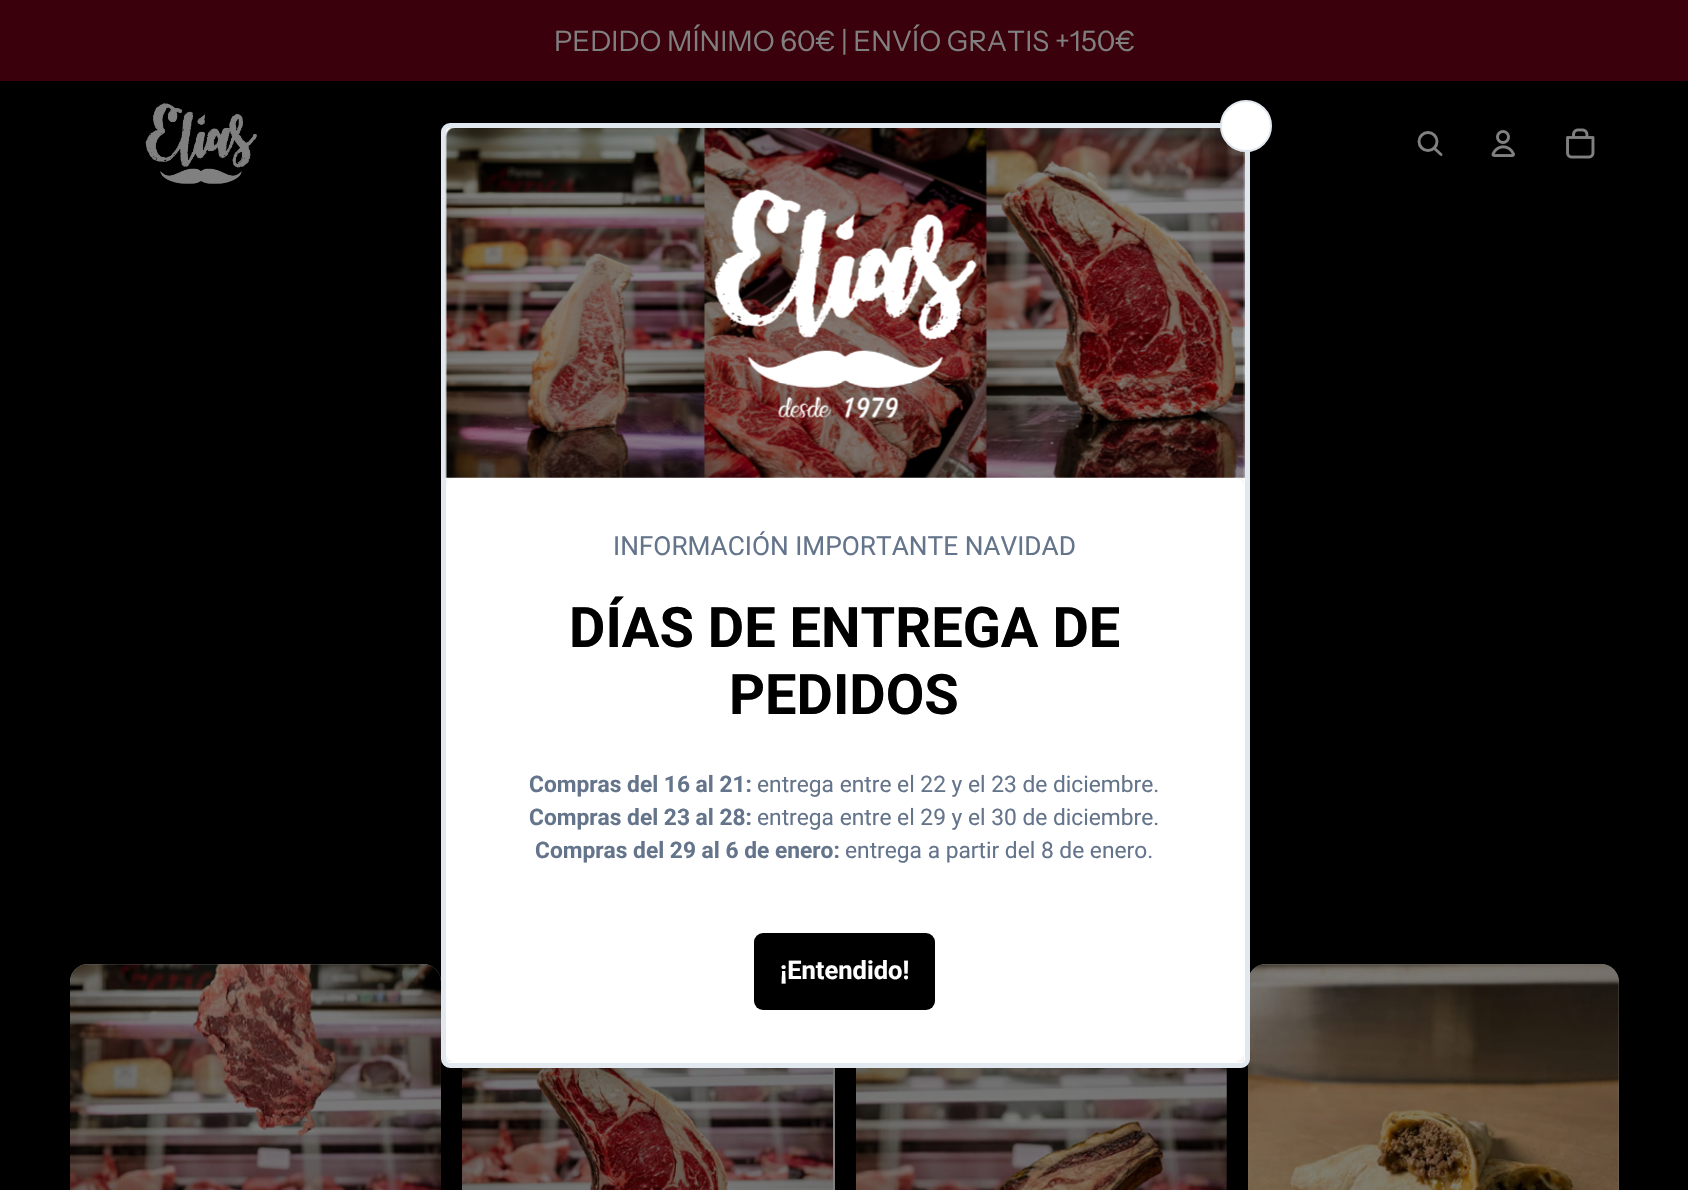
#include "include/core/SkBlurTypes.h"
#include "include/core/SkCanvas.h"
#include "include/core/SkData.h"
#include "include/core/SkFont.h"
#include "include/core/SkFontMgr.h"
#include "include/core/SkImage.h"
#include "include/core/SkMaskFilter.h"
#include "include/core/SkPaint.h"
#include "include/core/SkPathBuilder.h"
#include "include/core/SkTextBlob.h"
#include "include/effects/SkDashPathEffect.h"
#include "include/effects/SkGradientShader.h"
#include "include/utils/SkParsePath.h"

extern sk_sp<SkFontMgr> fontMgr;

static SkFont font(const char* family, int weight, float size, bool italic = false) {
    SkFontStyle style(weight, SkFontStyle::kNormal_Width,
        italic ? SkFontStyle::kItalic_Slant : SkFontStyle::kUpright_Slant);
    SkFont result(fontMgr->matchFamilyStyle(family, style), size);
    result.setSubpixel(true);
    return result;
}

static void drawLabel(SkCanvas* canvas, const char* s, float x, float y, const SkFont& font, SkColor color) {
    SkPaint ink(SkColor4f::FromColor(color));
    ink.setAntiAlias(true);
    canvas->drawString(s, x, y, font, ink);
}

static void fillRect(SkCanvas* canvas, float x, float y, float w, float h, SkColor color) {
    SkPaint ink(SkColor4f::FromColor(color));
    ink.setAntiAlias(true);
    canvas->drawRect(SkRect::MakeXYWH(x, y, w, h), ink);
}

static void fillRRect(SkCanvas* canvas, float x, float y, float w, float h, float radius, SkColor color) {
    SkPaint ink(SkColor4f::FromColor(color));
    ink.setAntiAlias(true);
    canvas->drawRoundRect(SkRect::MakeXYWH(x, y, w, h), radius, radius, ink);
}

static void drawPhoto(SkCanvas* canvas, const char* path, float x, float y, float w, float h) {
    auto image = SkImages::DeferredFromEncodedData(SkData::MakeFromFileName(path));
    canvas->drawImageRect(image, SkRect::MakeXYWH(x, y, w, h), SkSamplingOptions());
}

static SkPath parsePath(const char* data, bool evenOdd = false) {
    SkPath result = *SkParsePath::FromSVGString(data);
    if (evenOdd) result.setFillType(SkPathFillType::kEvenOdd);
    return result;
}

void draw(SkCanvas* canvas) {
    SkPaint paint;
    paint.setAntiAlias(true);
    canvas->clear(0xFF000000);
    fillRect(canvas, 0, 0, 1688, 81, 0xFF3A000C);
    SkFont font1 = font("Instrument Sans", 400, 28);
    drawLabel(canvas, "PEDIDO MÍNIMO 60€ | ENVÍO GRATIS +150€", 554, 51, font1, 0xFF808080);
    drawPhoto(canvas, "assets/img1.png", 145, 103, 112, 81);
    paint.setStroke(true);
    paint.setStrokeWidth(2.9f);
    paint.setColor(0xFF808080);
    canvas->drawCircle(1428, 141.5f, 9, paint);
    paint.setStrokeCap(SkPaint::kRound_Cap);
    paint.setStrokeJoin(SkPaint::kRound_Join);
    canvas->drawPath(parsePath("M1434.5 148.5L1441 154.5"), paint);
    drawPhoto(canvas, "assets/img2.png", 1491, 130, 24, 27);
    drawPhoto(canvas, "assets/img3.png", 1566, 128, 29, 31);
    fillRRect(canvas, 70, 964, 371, 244, 18, 0xFF808080);
    drawPhoto(canvas, "assets/img5.png", 70, 964, 371, 226);
    fillRect(canvas, 833, 1068, 2, 122, 0xFF808080);
    drawPhoto(canvas, "assets/img6.png", 462, 1068, 371, 122);
    drawPhoto(canvas, "assets/img7.png", 856, 1068, 371, 122);
    fillRRect(canvas, 1248, 964, 371, 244, 18, 0xFF808080);
    drawPhoto(canvas, "assets/img8.png", 1248, 964, 371, 226);
    paint.setStroke(false);
    paint.setColor(0x1A000000);
    paint.setMaskFilter(SkMaskFilter::MakeBlur(kNormal_SkBlurStyle, 13));
    canvas->drawRoundRect(SkRect::MakeXYWH(446, 145, 798, 935), 4, 4, paint);
    paint.setMaskFilter(nullptr);
    paint.setColor(0xFFFFFFFF);
    canvas->drawRoundRect(SkRect::MakeXYWH(443.5f, 125.5f, 804, 940), 6.5f, 6.5f, paint);
    paint.setStroke(true);
    paint.setStrokeWidth(5);
    paint.setStrokeCap(SkPaint::kButt_Cap);
    paint.setStrokeJoin(SkPaint::kMiter_Join);
    paint.setColor(0xFFE2E8F0);
    canvas->drawRoundRect(SkRect::MakeXYWH(443.5f, 125.5f, 804, 940), 6.5f, 6.5f, paint);
    drawPhoto(canvas, "assets/img4.png", 445, 128, 800, 350);
    paint.setStroke(false);
    paint.setColor(0xFFFFFFFF);
    canvas->drawCircle(1246, 126, 25, paint);
    paint.setStroke(true);
    paint.setStrokeWidth(2);
    paint.setColor(0xFFE2E8F0);
    canvas->drawCircle(1246, 126, 25, paint);
    canvas->save();
    canvas->clipRect(SkRect::MakeXYWH(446, 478, 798, 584));
    paint.setStroke(false);
    paint.setColor(0x0D000000);
    paint.setMaskFilter(SkMaskFilter::MakeBlur(kNormal_SkBlurStyle, 5));
    canvas->drawRoundRect(SkRect::MakeXYWH(450, 488, 791, 578), 5, 5, paint);
    paint.setMaskFilter(nullptr);
    paint.setColor(0x1F000000);
    paint.setMaskFilter(SkMaskFilter::MakeBlur(kNormal_SkBlurStyle, 17.5f));
    canvas->drawRoundRect(SkRect::MakeXYWH(452, 483, 787, 574), 4, 4, paint);
    paint.setMaskFilter(nullptr);
    canvas->restore();
    fillRRect(canvas, 446, 478, 798, 584, 9, 0xFFFFFFFF);
    SkFont font2 = font("Roboto", 400, 26.25f);
    drawLabel(canvas, "INFORMACIÓN IMPORTANTE NAVIDAD", 613, 555, font2, 0xFF64748B);
    SkFont font3 = font("Roboto", 700, 56);
    drawLabel(canvas, "DÍAS DE ENTREGA DE", 569, 647, font3, 0xFF000000);
    drawLabel(canvas, "PEDIDOS", 729, 714, font3, 0xFF000000);
    SkFont font4 = font("Roboto", 700, 22.75f);
    drawLabel(canvas, "Compras del 16 al 21:", 529, 792, font4, 0xFF64748B);
    SkFont font5 = font("Roboto", 400, 22.75f);
    drawLabel(canvas, "entrega entre el 22 y el 23 de diciembre.", 757, 792, font5, 0xFF64748B);
    drawLabel(canvas, "Compras del 23 al 28:", 529, 825, font4, 0xFF64748B);
    drawLabel(canvas, "entrega entre el 29 y el 30 de diciembre.", 757, 825, font5, 0xFF64748B);
    drawLabel(canvas, "Compras del 29 al 6 de enero:", 535, 858, font4, 0xFF64748B);
    drawLabel(canvas, "entrega a partir del 8 de enero.", 845, 858, font5, 0xFF64748B);
    fillRRect(canvas, 754, 933, 181, 77, 9, 0xFF000000);
    SkFont font6 = font("Roboto", 700, 25.5f);
    drawLabel(canvas, "¡Entendido!", 780, 979, font6, 0xFFFFFFFF);
}
